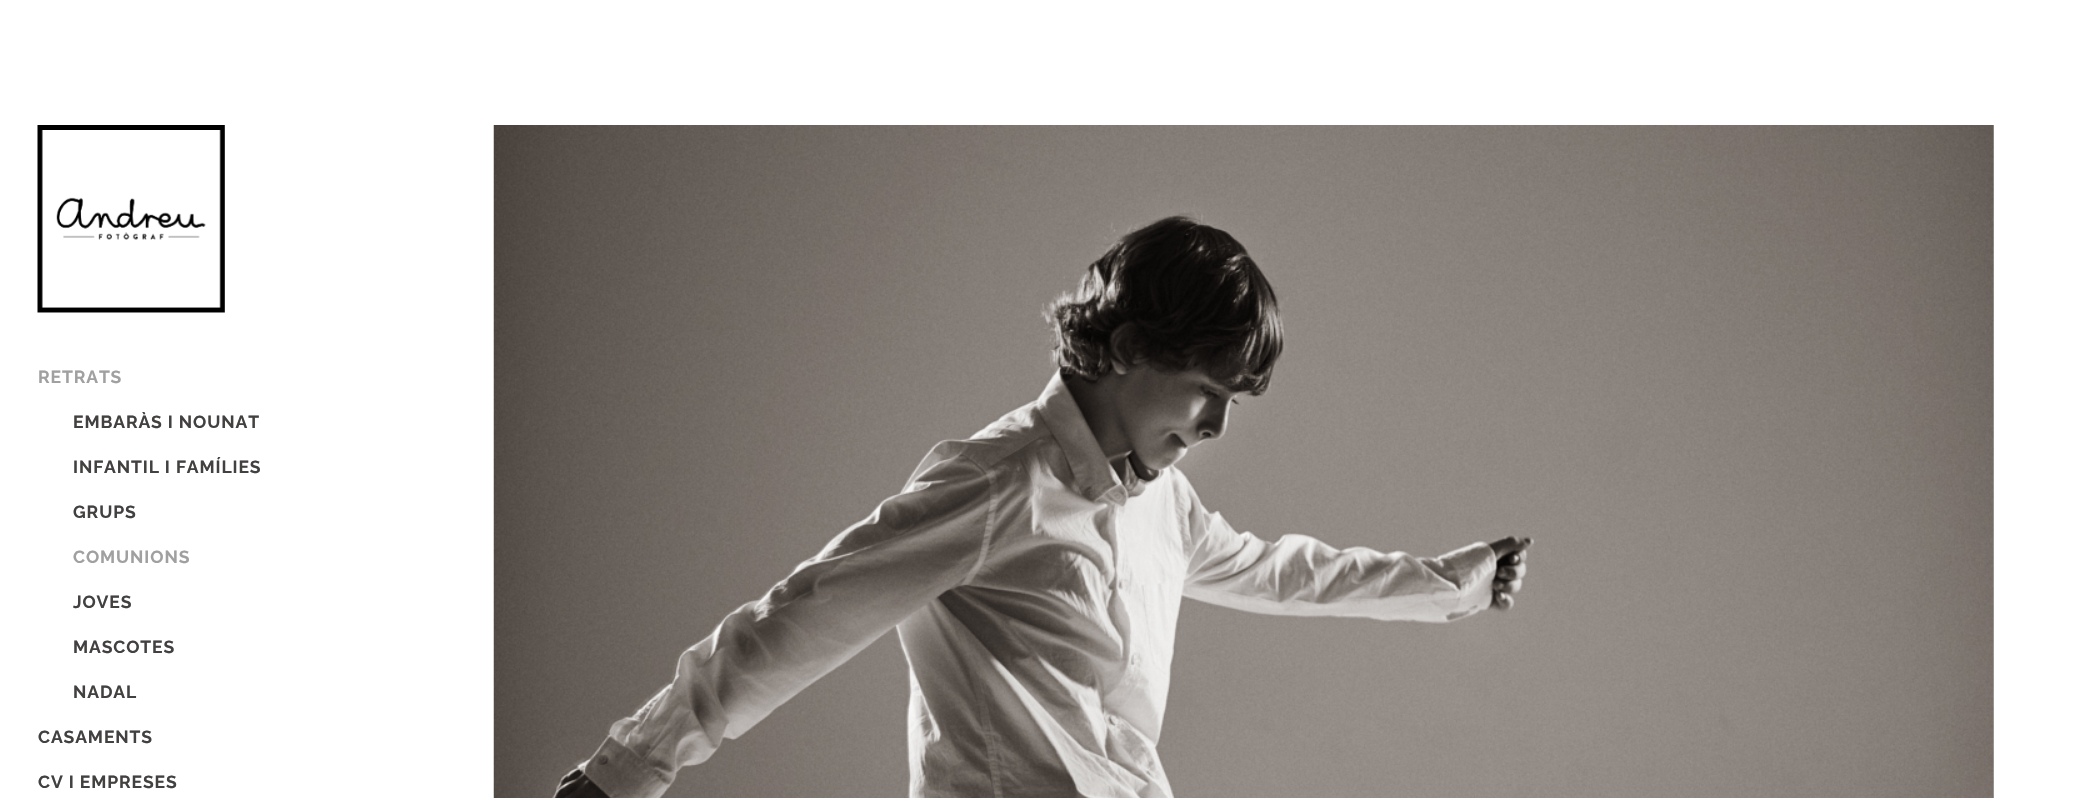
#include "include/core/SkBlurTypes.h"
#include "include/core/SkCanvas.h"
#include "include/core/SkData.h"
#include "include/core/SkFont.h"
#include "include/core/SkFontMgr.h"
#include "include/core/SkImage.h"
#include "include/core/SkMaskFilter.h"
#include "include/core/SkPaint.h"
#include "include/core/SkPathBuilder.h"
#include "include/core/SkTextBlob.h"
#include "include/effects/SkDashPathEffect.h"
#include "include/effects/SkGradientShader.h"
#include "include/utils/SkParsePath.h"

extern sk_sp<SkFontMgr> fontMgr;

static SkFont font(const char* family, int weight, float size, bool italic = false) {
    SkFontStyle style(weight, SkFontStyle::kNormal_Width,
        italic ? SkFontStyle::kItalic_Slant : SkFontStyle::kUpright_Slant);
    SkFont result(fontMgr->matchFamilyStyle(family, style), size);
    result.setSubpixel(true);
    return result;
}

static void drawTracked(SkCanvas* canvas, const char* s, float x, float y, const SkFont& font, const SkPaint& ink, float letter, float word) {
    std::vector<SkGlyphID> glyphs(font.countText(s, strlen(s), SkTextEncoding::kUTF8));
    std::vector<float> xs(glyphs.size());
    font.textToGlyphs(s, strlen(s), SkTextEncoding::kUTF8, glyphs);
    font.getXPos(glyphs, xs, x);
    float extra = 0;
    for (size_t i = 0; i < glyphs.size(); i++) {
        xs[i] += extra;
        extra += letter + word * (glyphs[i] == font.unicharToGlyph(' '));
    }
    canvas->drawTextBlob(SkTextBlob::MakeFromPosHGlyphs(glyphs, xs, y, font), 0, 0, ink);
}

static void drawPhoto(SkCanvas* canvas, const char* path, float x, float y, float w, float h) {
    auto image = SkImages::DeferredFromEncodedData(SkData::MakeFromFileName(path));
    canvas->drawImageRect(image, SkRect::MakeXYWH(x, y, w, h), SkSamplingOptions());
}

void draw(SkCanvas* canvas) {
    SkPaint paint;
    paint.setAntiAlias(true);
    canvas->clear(0xFFFFFFFF);
    drawPhoto(canvas, "assets/img1.png", 37, 125, 188, 188);
    SkFont font1 = font("Raleway", 700, 17.5f);
    paint.setColor(0xFFA1A0A0);
    drawTracked(canvas, "RETRATS", 38, 383, font1, paint, 0.9f, 0);
    paint.setColor(0xFF434040);
    drawTracked(canvas, "EMBARÀS I NOUNAT", 73, 428, font1, paint, 0.9f, 0);
    drawTracked(canvas, "INFANTIL I FAMÍLIES", 73, 473, font1, paint, 0.9f, 0);
    drawTracked(canvas, "GRUPS", 73, 518, font1, paint, 0.9f, 0);
    paint.setColor(0xFFA1A0A0);
    drawTracked(canvas, "COMUNIONS", 73, 563, font1, paint, 0.9f, 0);
    paint.setColor(0xFF434040);
    drawTracked(canvas, "JOVES", 73, 608, font1, paint, 0.9f, 0);
    drawTracked(canvas, "MASCOTES", 73, 653, font1, paint, 0.9f, 0);
    drawTracked(canvas, "NADAL", 73, 698, font1, paint, 0.9f, 0);
    drawTracked(canvas, "CASAMENTS", 38, 743, font1, paint, 0.9f, 0);
    drawTracked(canvas, "CV I EMPRESES", 38, 788, font1, paint, 0.9f, 0);
    drawPhoto(canvas, "assets/img2.png", 493, 125, 1501, 673);
}
